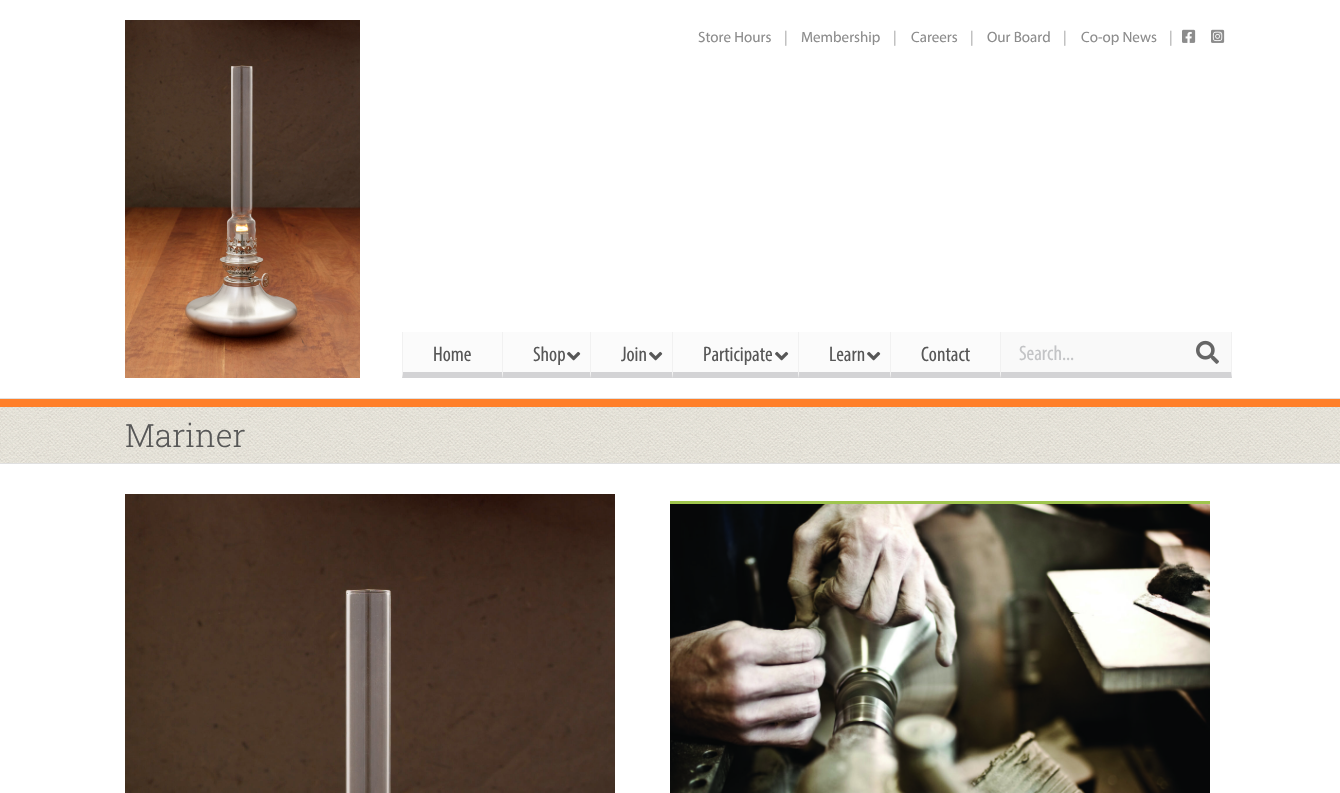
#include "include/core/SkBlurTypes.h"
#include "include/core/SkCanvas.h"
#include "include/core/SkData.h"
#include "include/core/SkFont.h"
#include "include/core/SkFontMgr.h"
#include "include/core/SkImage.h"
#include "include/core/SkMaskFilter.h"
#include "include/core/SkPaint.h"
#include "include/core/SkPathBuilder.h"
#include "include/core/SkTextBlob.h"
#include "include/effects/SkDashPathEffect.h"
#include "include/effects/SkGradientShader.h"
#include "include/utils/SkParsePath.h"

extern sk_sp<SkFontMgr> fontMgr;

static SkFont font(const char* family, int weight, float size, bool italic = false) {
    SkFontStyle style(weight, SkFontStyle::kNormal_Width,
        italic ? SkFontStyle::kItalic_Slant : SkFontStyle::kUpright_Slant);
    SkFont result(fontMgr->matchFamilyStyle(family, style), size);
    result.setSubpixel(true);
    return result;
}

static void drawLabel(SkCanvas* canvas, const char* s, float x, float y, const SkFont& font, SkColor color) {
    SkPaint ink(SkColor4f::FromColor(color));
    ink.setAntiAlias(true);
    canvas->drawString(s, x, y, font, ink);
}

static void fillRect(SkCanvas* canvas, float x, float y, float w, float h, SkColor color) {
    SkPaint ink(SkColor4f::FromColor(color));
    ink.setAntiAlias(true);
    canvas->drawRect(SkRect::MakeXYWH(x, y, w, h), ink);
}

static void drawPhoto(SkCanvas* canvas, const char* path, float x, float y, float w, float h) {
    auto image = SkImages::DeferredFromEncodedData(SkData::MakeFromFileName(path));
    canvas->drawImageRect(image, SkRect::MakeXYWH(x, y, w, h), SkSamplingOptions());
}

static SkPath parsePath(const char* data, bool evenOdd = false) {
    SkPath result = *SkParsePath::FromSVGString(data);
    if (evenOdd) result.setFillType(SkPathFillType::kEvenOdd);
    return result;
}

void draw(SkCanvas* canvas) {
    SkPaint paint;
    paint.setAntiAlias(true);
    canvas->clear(0xFFFFFFFF);
    SkFont font1 = font("Myriad", 400, 15);
    drawLabel(canvas, "Store Hours", 698, 42, font1, 0xFF8C8C8C);
    drawLabel(canvas, "|", 784, 42, font1, 0xFFB0B0B0);
    drawLabel(canvas, "Membership", 801, 42, font1, 0xFF8C8C8C);
    drawLabel(canvas, "|", 893, 42, font1, 0xFFB0B0B0);
    drawLabel(canvas, "Careers", 911, 42, font1, 0xFF8C8C8C);
    drawLabel(canvas, "|", 970, 42, font1, 0xFFB0B0B0);
    drawLabel(canvas, "Our Board", 987, 42, font1, 0xFF8C8C8C);
    drawLabel(canvas, "|", 1063, 42, font1, 0xFFB0B0B0);
    drawLabel(canvas, "Co-op News", 1081, 42, font1, 0xFF8C8C8C);
    drawLabel(canvas, "|", 1169, 42, font1, 0xFFB0B0B0);
    drawPhoto(canvas, "assets/img1.png", 1182, 29, 14, 14);
    drawPhoto(canvas, "assets/img2.png", 1211, 29, 14, 14);
    fillRect(canvas, 0, 399, 1340, 8, 0xFFFF7F29);
    drawPhoto(canvas, "assets/img3.png", 125, 20, 235, 358);
    fillRect(canvas, 402, 332, 598, 46, 0xFFFBFBFB);
    paint.setColor(0xFFD3D3D5);
    canvas->drawPath(parsePath("M502 378H402L403 372H502Z"), paint);
    paint.setColor(0xFFF1F1F1);
    canvas->drawPath(parsePath("M402 378V332H403V372Z"), paint);
    SkFont font2 = font("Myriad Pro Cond", 400, 21);
    drawLabel(canvas, "Home", 433, 361, font2, 0xFF575757);
    paint.setColor(0xFFD3D3D5);
    canvas->drawPath(parsePath("M590 378H502L503 372H590Z"), paint);
    paint.setColor(0xFFF1F1F1);
    canvas->drawPath(parsePath("M502 378V332H503V372Z"), paint);
    drawLabel(canvas, "Shop", 533, 361, font2, 0xFF575757);
    drawPhoto(canvas, "assets/img4.png", 567, 351, 14, 10);
    paint.setColor(0xFFD3D3D5);
    canvas->drawPath(parsePath("M672 378H590L591 372H672Z"), paint);
    paint.setColor(0xFFF1F1F1);
    canvas->drawPath(parsePath("M590 378V332H591V372Z"), paint);
    drawLabel(canvas, "Join", 621, 361, font2, 0xFF575757);
    drawPhoto(canvas, "assets/img4.png", 649, 351, 14, 10);
    paint.setColor(0xFFD3D3D5);
    canvas->drawPath(parsePath("M798 378H672L673 372H798Z"), paint);
    paint.setColor(0xFFF1F1F1);
    canvas->drawPath(parsePath("M672 378V332H673V372Z"), paint);
    drawLabel(canvas, "Participate", 703, 361, font2, 0xFF575757);
    drawPhoto(canvas, "assets/img4.png", 775, 351, 14, 10);
    paint.setColor(0xFFD3D3D5);
    canvas->drawPath(parsePath("M890 378H798L799 372H890Z"), paint);
    paint.setColor(0xFFF1F1F1);
    canvas->drawPath(parsePath("M798 378V332H799V372Z"), paint);
    drawLabel(canvas, "Learn", 829, 361, font2, 0xFF575757);
    drawPhoto(canvas, "assets/img4.png", 867, 351, 14, 10);
    paint.setColor(0xFFD3D3D5);
    canvas->drawPath(parsePath("M1000 378H890L891 372H1000Z"), paint);
    paint.setColor(0xFFF1F1F1);
    canvas->drawPath(parsePath("M890 378V332H891V372Z"), paint);
    drawLabel(canvas, "Contact", 921, 361, font2, 0xFF575757);
    canvas->drawPath(parsePath("M1232 332V378L1231 372V332Z"), paint);
    paint.setColor(0xFFD3D3D5);
    canvas->drawPath(parsePath("M1232 378H1000L1001 372H1231Z"), paint);
    paint.setColor(0xFFF1F1F1);
    canvas->drawPath(parsePath("M1000 378V332H1001V372Z"), paint);
    fillRect(canvas, 1001, 332, 230, 40, 0xFFF9F9F9);
    drawLabel(canvas, "Search...", 1019, 360, font2, 0xFFC3C4C6);
    drawPhoto(canvas, "assets/img5.png", 1196, 340, 23, 24);
    fillRect(canvas, 0, 398, 1340, 1, 0xFFE0E0E0);
    drawPhoto(canvas, "assets/img6.png", 0, 407, 1340, 56);
    fillRect(canvas, 0, 463, 1340, 1, 0xFFE0E0E0);
    SkFont font3 = font("Roboto Slab", 300, 32);
    drawLabel(canvas, "Mariner", 125, 447, font3, 0xFF575757);
    drawPhoto(canvas, "assets/img7.png", 125, 494, 490, 299);
    fillRect(canvas, 670, 501, 540, 3, 0xFF9FC54D);
    drawPhoto(canvas, "assets/img8.png", 670, 504, 540, 289);
}
